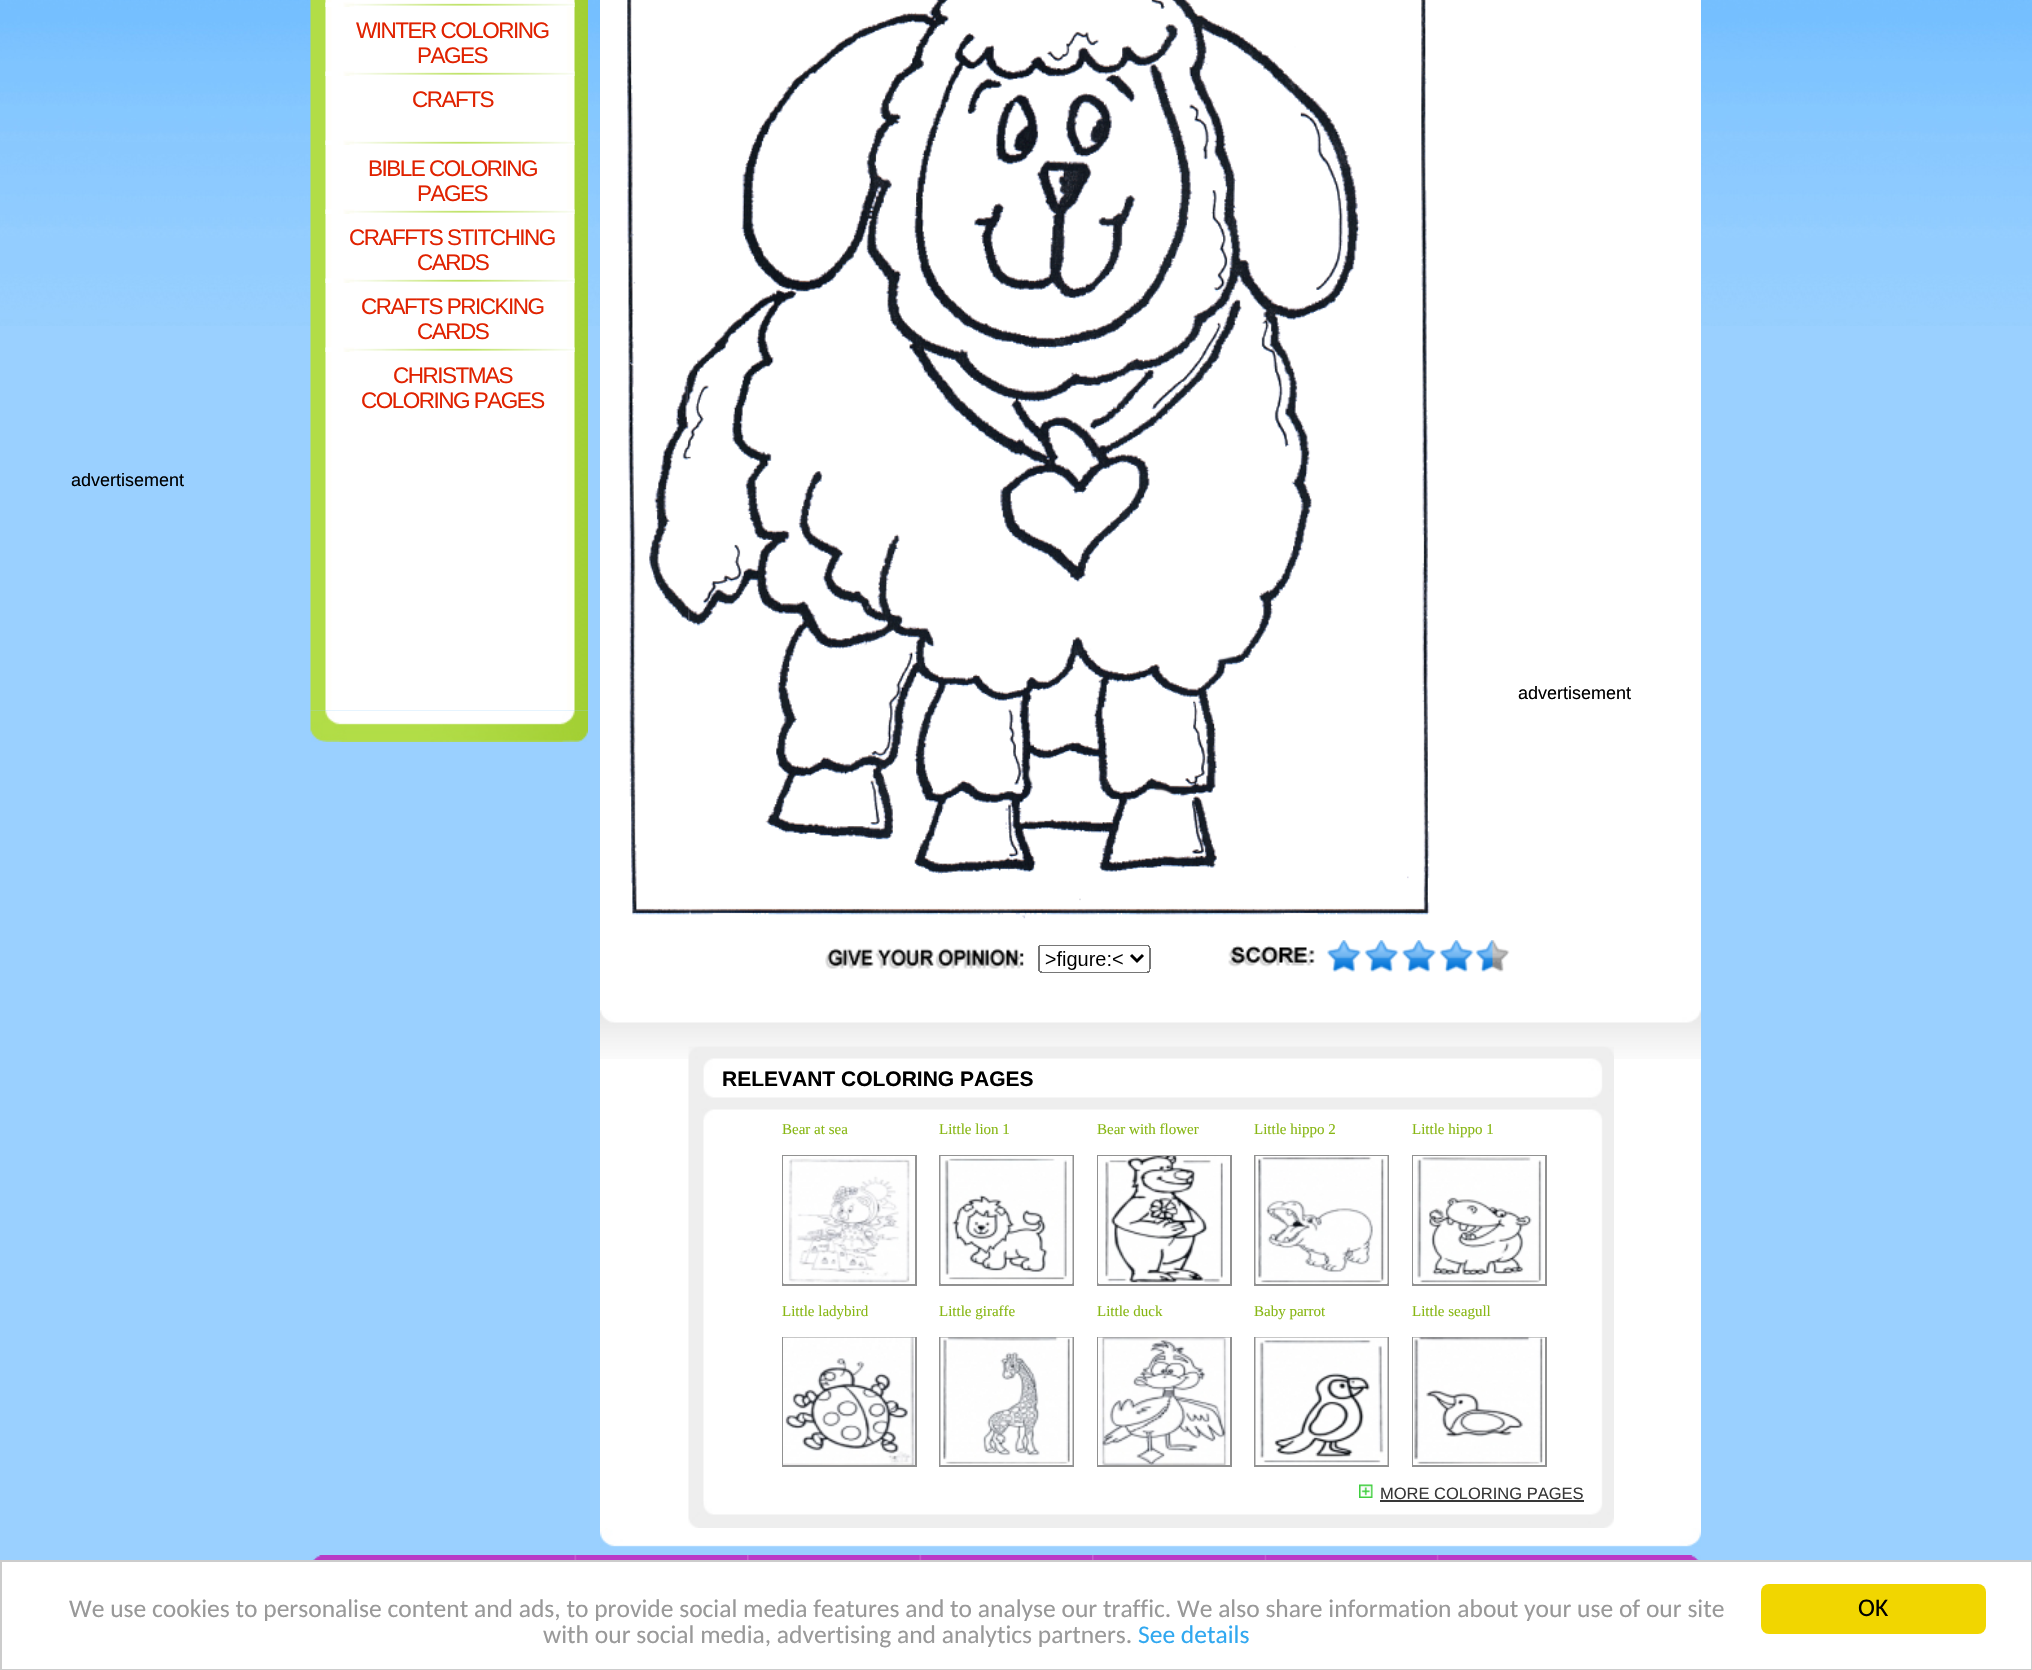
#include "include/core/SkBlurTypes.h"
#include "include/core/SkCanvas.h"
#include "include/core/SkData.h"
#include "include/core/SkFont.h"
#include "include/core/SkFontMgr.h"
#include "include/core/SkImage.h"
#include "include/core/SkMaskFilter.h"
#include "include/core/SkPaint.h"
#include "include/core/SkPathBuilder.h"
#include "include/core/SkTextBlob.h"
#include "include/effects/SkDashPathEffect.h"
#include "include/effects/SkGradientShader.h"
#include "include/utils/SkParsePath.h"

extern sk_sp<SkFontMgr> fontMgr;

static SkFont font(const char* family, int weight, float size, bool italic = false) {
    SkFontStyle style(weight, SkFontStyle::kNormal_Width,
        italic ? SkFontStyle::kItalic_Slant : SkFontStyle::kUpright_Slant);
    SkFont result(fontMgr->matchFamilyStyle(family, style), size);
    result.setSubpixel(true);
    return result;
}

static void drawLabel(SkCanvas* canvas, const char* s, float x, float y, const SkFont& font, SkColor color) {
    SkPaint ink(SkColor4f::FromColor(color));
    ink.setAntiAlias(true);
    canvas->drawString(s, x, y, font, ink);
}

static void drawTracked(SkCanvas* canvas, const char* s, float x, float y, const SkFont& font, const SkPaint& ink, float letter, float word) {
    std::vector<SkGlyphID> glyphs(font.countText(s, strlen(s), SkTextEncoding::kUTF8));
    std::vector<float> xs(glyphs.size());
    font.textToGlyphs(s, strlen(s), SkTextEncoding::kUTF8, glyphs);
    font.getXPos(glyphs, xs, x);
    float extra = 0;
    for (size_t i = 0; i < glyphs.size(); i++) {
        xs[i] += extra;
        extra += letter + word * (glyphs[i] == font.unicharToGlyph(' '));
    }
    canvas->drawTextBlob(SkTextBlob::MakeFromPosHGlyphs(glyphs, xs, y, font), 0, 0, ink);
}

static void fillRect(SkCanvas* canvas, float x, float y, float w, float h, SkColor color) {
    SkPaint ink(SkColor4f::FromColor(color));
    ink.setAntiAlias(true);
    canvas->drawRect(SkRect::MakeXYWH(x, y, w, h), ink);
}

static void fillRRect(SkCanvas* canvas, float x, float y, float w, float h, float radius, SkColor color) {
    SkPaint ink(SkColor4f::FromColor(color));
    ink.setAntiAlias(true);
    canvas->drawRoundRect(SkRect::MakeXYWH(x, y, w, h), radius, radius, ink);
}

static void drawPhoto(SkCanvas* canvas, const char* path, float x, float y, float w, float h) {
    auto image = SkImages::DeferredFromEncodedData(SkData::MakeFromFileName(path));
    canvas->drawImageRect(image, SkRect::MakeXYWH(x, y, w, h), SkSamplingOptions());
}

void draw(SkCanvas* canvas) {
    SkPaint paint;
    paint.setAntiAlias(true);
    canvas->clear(0xFF9AD0FF);
    drawPhoto(canvas, "assets/img1.png", 0, 0, 2032, 326);
    drawPhoto(canvas, "assets/img2.png", 310, 0, 278, 711);
    drawPhoto(canvas, "assets/img3.png", 325, 2, 250, 5);
    SkFont font1 = font("Liberation Sans", 400, 22.5f);
    paint.setColor(0xFFE02200);
    drawTracked(canvas, "WINTER COLORING", 356, 38, font1, paint, -1.5f, 0);
    drawTracked(canvas, "PAGES", 417, 63, font1, paint, -1.5f, 0);
    drawPhoto(canvas, "assets/img3.png", 325, 71, 250, 5);
    drawTracked(canvas, "CRAFTS", 412, 107, font1, paint, -1.5f, 0);
    drawPhoto(canvas, "assets/img3.png", 325, 140, 250, 5);
    drawTracked(canvas, "BIBLE COLORING", 368, 176, font1, paint, -1.5f, 0);
    drawTracked(canvas, "PAGES", 417, 201, font1, paint, -1.5f, 0);
    drawPhoto(canvas, "assets/img3.png", 325, 209, 250, 5);
    drawTracked(canvas, "CRAFFTS STITCHING", 349, 245, font1, paint, -1.5f, 0);
    drawTracked(canvas, "CARDS", 417, 270, font1, paint, -1.5f, 0);
    drawPhoto(canvas, "assets/img3.png", 325, 278, 250, 5);
    drawTracked(canvas, "CRAFTS PRICKING", 361, 314, font1, paint, -1.5f, 0);
    drawTracked(canvas, "CARDS", 417, 339, font1, paint, -1.5f, 0);
    drawPhoto(canvas, "assets/img3.png", 325, 347, 250, 5);
    drawTracked(canvas, "CHRISTMAS", 393, 383, font1, paint, -1.5f, 0);
    drawTracked(canvas, "COLORING PAGES", 361, 408, font1, paint, -1.5f, 0);
    drawPhoto(canvas, "assets/img4.png", 310, 710, 278, 32);
    SkFont font2 = font("Liberation Sans", 400, 18);
    drawLabel(canvas, "advertisement", 71, 486, font2, 0xFF000000);
    fillRect(canvas, 600, 0, 1101, 1528, 0xFFFFFFFF);
    drawPhoto(canvas, "assets/img5.png", 627, 0, 803, 919);
    drawLabel(canvas, "advertisement", 1518, 699, font2, 0xFF000000);
    drawPhoto(canvas, "assets/img6.png", 825, 940, 685, 33);
    drawPhoto(canvas, "assets/img7.png", 600, 1010, 1101, 49);
    drawPhoto(canvas, "assets/img8.png", 688, 1046, 926, 74);
    SkFont font3 = font("Liberation Sans", 700, 21);
    drawLabel(canvas, "RELEVANT COLORING PAGES", 722, 1086, font3, 0xFF000000);
    drawPhoto(canvas, "assets/img9.png", 688, 1120, 926, 381);
    SkFont font4 = font("Liberation Serif", 400, 15);
    drawLabel(canvas, "Bear at sea", 782, 1134, font4, 0xFF88B714);
    paint.setStroke(true);
    paint.setStrokeWidth(2);
    paint.setColor(0xFF919191);
    canvas->drawRect(SkRect::MakeXYWH(783, 1156, 133, 129), paint);
    drawPhoto(canvas, "assets/img10.png", 783, 1156, 132, 128);
    drawLabel(canvas, "Little lion 1", 939, 1134, font4, 0xFF88B714);
    canvas->drawRect(SkRect::MakeXYWH(940, 1156, 133, 129), paint);
    drawPhoto(canvas, "assets/img11.png", 940, 1156, 133, 128);
    drawLabel(canvas, "Bear with flower", 1097, 1134, font4, 0xFF88B714);
    canvas->drawRect(SkRect::MakeXYWH(1098, 1156, 133, 129), paint);
    drawPhoto(canvas, "assets/img12.png", 1098, 1156, 132, 128);
    drawLabel(canvas, "Little hippo 2", 1254, 1134, font4, 0xFF88B714);
    canvas->drawRect(SkRect::MakeXYWH(1255, 1156, 133, 129), paint);
    drawPhoto(canvas, "assets/img13.png", 1255, 1156, 133, 128);
    drawLabel(canvas, "Little hippo 1", 1412, 1134, font4, 0xFF88B714);
    canvas->drawRect(SkRect::MakeXYWH(1413, 1156, 133, 129), paint);
    drawPhoto(canvas, "assets/img14.png", 1413, 1156, 132, 128);
    drawLabel(canvas, "Little ladybird", 782, 1316, font4, 0xFF88B714);
    canvas->drawRect(SkRect::MakeXYWH(783, 1338, 133, 128), paint);
    drawPhoto(canvas, "assets/img15.png", 783, 1337, 132, 128);
    drawLabel(canvas, "Little giraffe", 939, 1316, font4, 0xFF88B714);
    canvas->drawRect(SkRect::MakeXYWH(940, 1338, 133, 128), paint);
    drawPhoto(canvas, "assets/img16.png", 940, 1337, 133, 128);
    drawLabel(canvas, "Little duck", 1097, 1316, font4, 0xFF88B714);
    canvas->drawRect(SkRect::MakeXYWH(1098, 1338, 133, 128), paint);
    drawPhoto(canvas, "assets/img17.png", 1098, 1337, 132, 128);
    drawLabel(canvas, "Baby parrot", 1254, 1316, font4, 0xFF88B714);
    canvas->drawRect(SkRect::MakeXYWH(1255, 1338, 133, 128), paint);
    drawPhoto(canvas, "assets/img18.png", 1255, 1337, 133, 128);
    drawLabel(canvas, "Little seagull", 1412, 1316, font4, 0xFF88B714);
    canvas->drawRect(SkRect::MakeXYWH(1413, 1338, 133, 128), paint);
    drawPhoto(canvas, "assets/img19.png", 1413, 1337, 132, 128);
    drawPhoto(canvas, "assets/img20.png", 1359, 1484, 14, 14);
    SkFont font5 = font("Liberation Sans", 400, 16.5f);
    drawLabel(canvas, "MORE COLORING PAGES", 1380, 1499, font5, 0xFF383838);
    drawPhoto(canvas, "assets/img21.png", 688, 1501, 926, 27);
    fillRect(canvas, 1380, 1500, 204, 2, 0xFF383838);
    drawPhoto(canvas, "assets/img22.png", 600, 1528, 1101, 19);
    drawPhoto(canvas, "assets/img23.png", 310, 1555, 1391, 5);
    drawPhoto(canvas, "assets/img24.png", 574, 1555, 173, 5);
    drawPhoto(canvas, "assets/img25.png", 747, 1555, 173, 5);
    drawPhoto(canvas, "assets/img26.png", 919, 1555, 173, 5);
    drawPhoto(canvas, "assets/img25.png", 1092, 1555, 173, 5);
    drawPhoto(canvas, "assets/img27.png", 1264, 1555, 175, 5);
    paint.setStroke(false);
    paint.setColor(0xFFFFFFFF);
    canvas->drawRect(SkRect::MakeXYWH(1, 1561, 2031, 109), paint);
    paint.setStroke(true);
    paint.setColor(0xFFCCCCCC);
    canvas->drawRect(SkRect::MakeXYWH(1, 1561, 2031, 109), paint);
    SkFont font6 = font("Carlito", 400, 25.5f);
    drawLabel(canvas, "We use cookies to personalise content and ads, to provide social media features and to analyse our traffic. We also share information about your use of our site", 69, 1617, font6, 0xFF999999);
    drawLabel(canvas, "with our social media, advertising and analytics partners.", 543, 1643, font6, 0xFF999999);
    drawLabel(canvas, "See details", 1138, 1643, font6, 0xFF31A8F0);
    fillRRect(canvas, 1761, 1584, 225, 50, 8, 0xFFF1D600);
    drawLabel(canvas, "OK", 1858, 1616, font6, 0xFF000000);
}
